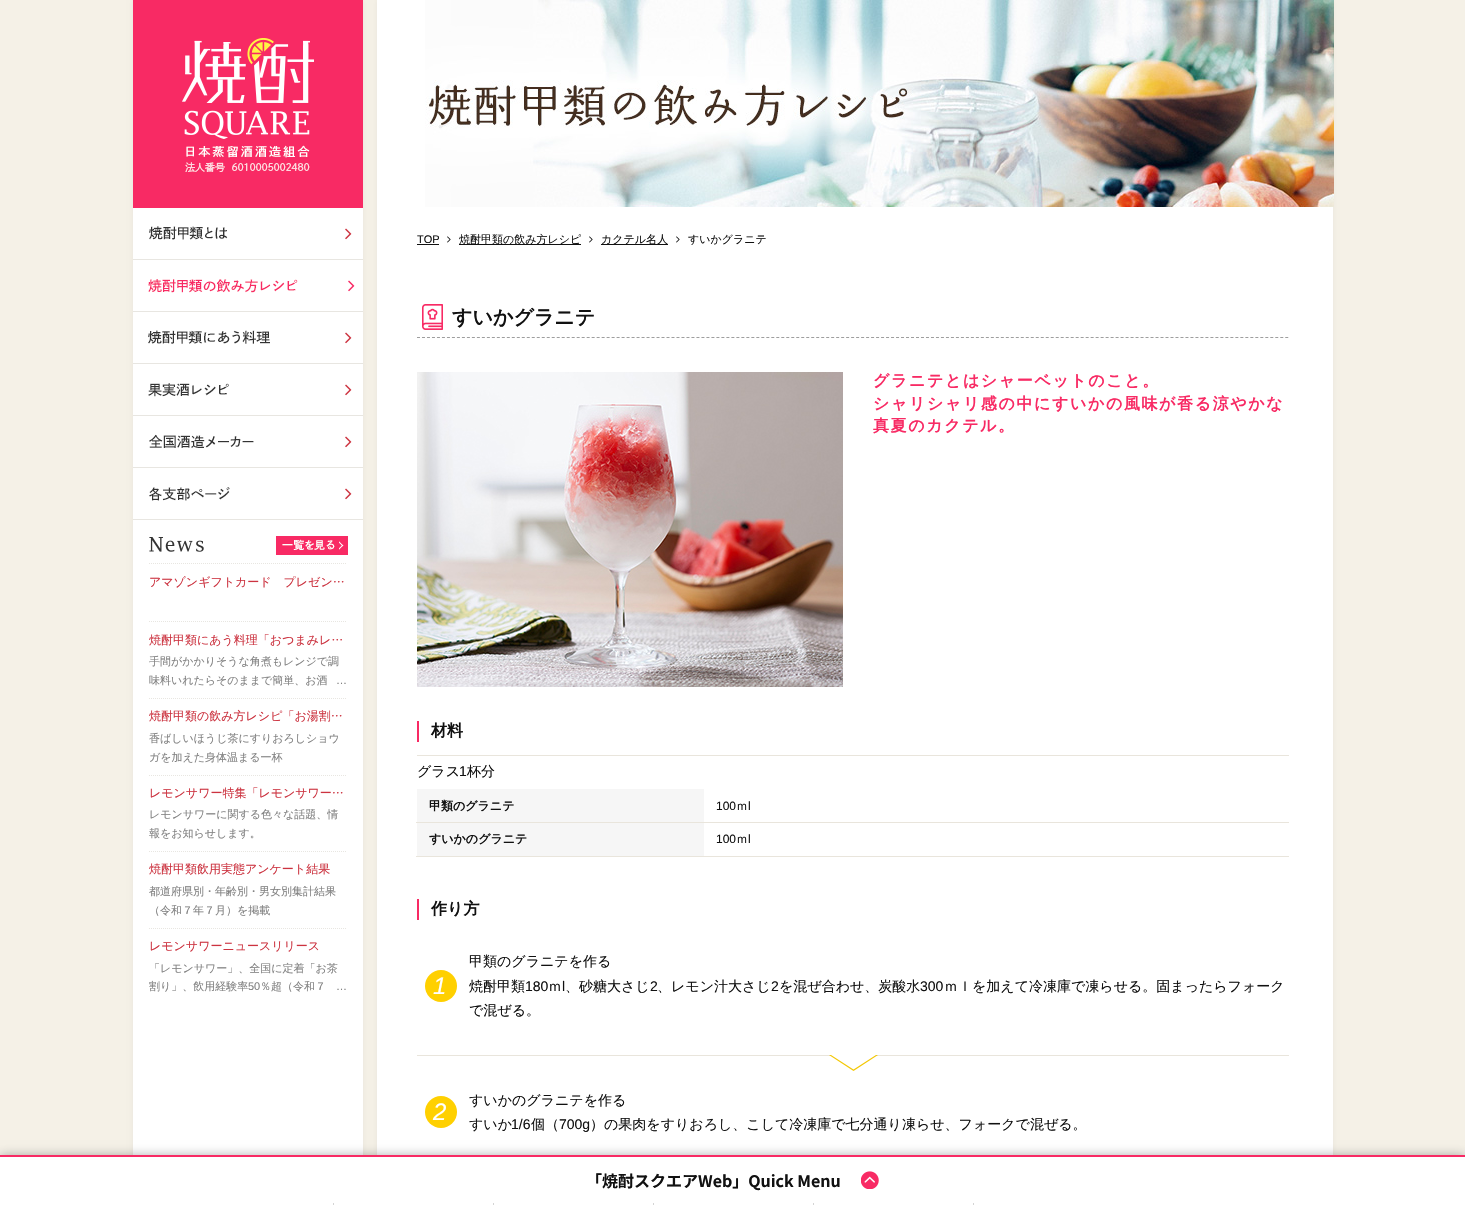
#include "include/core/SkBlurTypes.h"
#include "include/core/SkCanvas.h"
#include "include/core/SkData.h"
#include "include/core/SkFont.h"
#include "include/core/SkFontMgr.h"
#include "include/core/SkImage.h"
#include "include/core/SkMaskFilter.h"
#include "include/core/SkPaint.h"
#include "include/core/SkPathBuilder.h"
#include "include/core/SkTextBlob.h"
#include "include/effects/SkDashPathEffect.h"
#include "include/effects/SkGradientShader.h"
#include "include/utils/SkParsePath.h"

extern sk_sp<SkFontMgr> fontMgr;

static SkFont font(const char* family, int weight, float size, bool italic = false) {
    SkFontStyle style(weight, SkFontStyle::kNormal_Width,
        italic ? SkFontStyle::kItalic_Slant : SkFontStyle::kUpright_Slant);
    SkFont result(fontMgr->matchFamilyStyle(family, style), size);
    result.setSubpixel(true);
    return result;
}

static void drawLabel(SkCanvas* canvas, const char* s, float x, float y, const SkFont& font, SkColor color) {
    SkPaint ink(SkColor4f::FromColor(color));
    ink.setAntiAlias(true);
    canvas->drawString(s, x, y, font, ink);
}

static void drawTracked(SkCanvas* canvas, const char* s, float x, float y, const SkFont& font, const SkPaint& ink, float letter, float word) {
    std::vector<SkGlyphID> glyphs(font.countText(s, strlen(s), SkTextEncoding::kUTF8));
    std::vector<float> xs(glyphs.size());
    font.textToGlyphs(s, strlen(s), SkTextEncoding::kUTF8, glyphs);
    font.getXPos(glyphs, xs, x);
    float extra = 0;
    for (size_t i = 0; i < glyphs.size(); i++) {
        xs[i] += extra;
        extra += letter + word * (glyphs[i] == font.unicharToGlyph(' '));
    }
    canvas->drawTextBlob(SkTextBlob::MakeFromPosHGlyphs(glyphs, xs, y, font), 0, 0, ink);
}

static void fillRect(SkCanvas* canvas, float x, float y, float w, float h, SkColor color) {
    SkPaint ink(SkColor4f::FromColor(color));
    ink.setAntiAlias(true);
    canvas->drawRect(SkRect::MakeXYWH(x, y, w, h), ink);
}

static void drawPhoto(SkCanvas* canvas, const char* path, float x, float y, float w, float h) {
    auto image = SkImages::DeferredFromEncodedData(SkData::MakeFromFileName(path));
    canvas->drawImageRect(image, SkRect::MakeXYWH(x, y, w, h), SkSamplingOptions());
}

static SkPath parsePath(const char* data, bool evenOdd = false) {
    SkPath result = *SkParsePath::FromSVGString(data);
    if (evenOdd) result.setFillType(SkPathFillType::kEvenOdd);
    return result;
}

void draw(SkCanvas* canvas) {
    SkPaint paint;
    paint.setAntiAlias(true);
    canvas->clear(0xFFF5F1E7);
    paint.setColor(0x0D000000);
    paint.setMaskFilter(SkMaskFilter::MakeBlur(kNormal_SkBlurStyle, 2.5f));
    canvas->drawRect(SkRect::MakeXYWH(133, 0, 230, 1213), paint);
    paint.setMaskFilter(nullptr);
    fillRect(canvas, 133, 208, 230, 947, 0xFFFFFFFF);
    fillRect(canvas, 133, 0, 230, 208, 0xFFF82A64);
    drawPhoto(canvas, "assets/img1.png", 182, 38, 132, 134);
    fillRect(canvas, 133, 259, 230, 1, 0xFFE8E6E1);
    drawPhoto(canvas, "assets/img2.png", 149, 226, 79, 14);
    drawPhoto(canvas, "assets/img3.png", 345, 228, 7, 12);
    fillRect(canvas, 133, 311, 230, 1, 0xFFE8E6E1);
    drawPhoto(canvas, "assets/img4.png", 148, 279, 150, 14);
    drawPhoto(canvas, "assets/img5.png", 348, 280, 7, 12);
    fillRect(canvas, 133, 363, 230, 1, 0xFFE8E6E1);
    drawPhoto(canvas, "assets/img6.png", 148, 330, 122, 14);
    drawPhoto(canvas, "assets/img3.png", 345, 332, 7, 12);
    fillRect(canvas, 133, 415, 230, 1, 0xFFE8E6E1);
    drawPhoto(canvas, "assets/img7.png", 148, 383, 81, 14);
    drawPhoto(canvas, "assets/img3.png", 345, 384, 7, 12);
    fillRect(canvas, 133, 467, 230, 1, 0xFFE8E6E1);
    drawPhoto(canvas, "assets/img8.png", 149, 434, 105, 14);
    drawPhoto(canvas, "assets/img3.png", 345, 436, 7, 12);
    fillRect(canvas, 133, 519, 230, 1, 0xFFE8E6E1);
    drawPhoto(canvas, "assets/img9.png", 149, 487, 81, 14);
    drawPhoto(canvas, "assets/img3.png", 345, 488, 7, 12);
    drawPhoto(canvas, "assets/img10.png", 149, 537, 55, 15);
    drawPhoto(canvas, "assets/img11.png", 276, 536, 72, 19);
    paint.setStroke(true);
    paint.setStrokeWidth(1);
    paint.setColor(0xFFE8E6E1);
    paint.setPathEffect(SkDashPathEffect::Make({{1, 1}}, 0));
    canvas->drawPath(parsePath("M149 563.5H347"), paint);
    paint.setPathEffect(nullptr);
    SkFont font1 = font("WenQuanYi Zen Hei", 500, 12);
    drawLabel(canvas, "アマゾンギフトカード　プレゼン…", 149, 586, font1, 0xFFCC3340);
    paint.setPathEffect(SkDashPathEffect::Make({{1, 1}}, 0));
    canvas->drawPath(parsePath("M149 621.5H347"), paint);
    paint.setPathEffect(nullptr);
    drawLabel(canvas, "焼酎甲類にあう料理「おつまみレ…", 149, 644, font1, 0xFFCC3340);
    SkFont font2 = font("WenQuanYi Zen Hei", 500, 11);
    drawLabel(canvas, "手間がかかりそうな角煮もレンジで調", 149, 665, font2, 0xFF818181);
    drawLabel(canvas, "味料いれたらそのままで簡単、お酒", 149, 684, font2, 0xFF818181);
    SkFont font3 = font("Liberation Sans", 400, 11);
    drawLabel(canvas, "…", 336, 684, font3, 0xFF818181);
    paint.setPathEffect(SkDashPathEffect::Make({{1, 1}}, 0));
    canvas->drawPath(parsePath("M149 698.5H347"), paint);
    paint.setPathEffect(nullptr);
    drawLabel(canvas, "焼酎甲類の飲み方レシピ「お湯割…", 149, 720, font1, 0xFFCC3340);
    drawLabel(canvas, "香ばしいほうじ茶にすりおろしショウ", 149, 742, font2, 0xFF818181);
    drawLabel(canvas, "ガを加えた身体温まる一杯", 149, 761, font2, 0xFF818181);
    paint.setPathEffect(SkDashPathEffect::Make({{1, 1}}, 0));
    canvas->drawPath(parsePath("M149 775.5H347"), paint);
    paint.setPathEffect(nullptr);
    drawLabel(canvas, "レモンサワー特集「レモンサワー…", 149, 797, font1, 0xFFCC3340);
    drawLabel(canvas, "レモンサワーに関する色々な話題、情", 149, 818, font2, 0xFF818181);
    drawLabel(canvas, "報をお知らせします。", 149, 837, font2, 0xFF818181);
    paint.setPathEffect(SkDashPathEffect::Make({{1, 1}}, 0));
    canvas->drawPath(parsePath("M149 851.5H347"), paint);
    paint.setPathEffect(nullptr);
    drawLabel(canvas, "焼酎甲類飲用実態アンケート結果", 149, 873, font1, 0xFFCC3340);
    drawLabel(canvas, "都道府県別・年齢別・男女別集計結果", 149, 895, font2, 0xFF818181);
    drawLabel(canvas, "（令和７年７月）を掲載", 149, 914, font2, 0xFF818181);
    paint.setPathEffect(SkDashPathEffect::Make({{1, 1}}, 0));
    canvas->drawPath(parsePath("M149 928.5H347"), paint);
    paint.setPathEffect(nullptr);
    drawLabel(canvas, "レモンサワーニュースリリース", 149, 950, font1, 0xFFCC3340);
    drawLabel(canvas, "「レモンサワー」、全国に定着「お茶", 149, 972, font2, 0xFF818181);
    drawLabel(canvas, "割り」、飲用経験率", 149, 990, font2, 0xFF818181);
    drawLabel(canvas, "50", 248, 990, font3, 0xFF818181);
    drawLabel(canvas, "％超（令和７", 260, 990, font2, 0xFF818181);
    drawLabel(canvas, "…", 336, 990, font3, 0xFF818181);
    paint.setStroke(false);
    paint.setColor(0x0D000000);
    paint.setMaskFilter(SkMaskFilter::MakeBlur(kNormal_SkBlurStyle, 2.5f));
    canvas->drawRect(SkRect::MakeXYWH(377, 0, 956, 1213), paint);
    paint.setMaskFilter(nullptr);
    fillRect(canvas, 377, 0, 956, 1155, 0xFFFFFFFF);
    drawPhoto(canvas, "assets/img12.png", 425, 0, 909, 207);
    drawLabel(canvas, "TOP", 417, 243, font3, 0xFF111111);
    fillRect(canvas, 417, 244, 22, 1, 0xFF111111);
    drawPhoto(canvas, "assets/img13.png", 447, 236, 4, 7);
    fillRect(canvas, 459, 244, 122, 1, 0xFF111111);
    drawLabel(canvas, "焼酎甲類の飲み方レシピ", 459, 243, font2, 0xFF111111);
    drawPhoto(canvas, "assets/img13.png", 589, 236, 4, 7);
    fillRect(canvas, 601, 244, 67, 1, 0xFF111111);
    drawLabel(canvas, "カクテル名人", 601, 243, font2, 0xFF111111);
    drawPhoto(canvas, "assets/img13.png", 676, 236, 4, 7);
    drawLabel(canvas, "すいかグラニテ", 688, 243, font2, 0xFF111111);
    drawPhoto(canvas, "assets/img14.png", 422, 304, 21, 26);
    paint.setStroke(true);
    paint.setColor(0xFF9E9E9E);
    paint.setPathEffect(SkDashPathEffect::Make({{3, 1.99f}}, 0));
    canvas->drawPath(parsePath("M417 337.5H1289"), paint);
    paint.setPathEffect(nullptr);
    SkFont font4 = font("WenQuanYi Zen Hei", 700, 20);
    drawLabel(canvas, "すいかグラニテ", 452, 324, font4, 0xFF111111);
    drawPhoto(canvas, "assets/img15.png", 417, 372, 426, 315);
    SkFont font5 = font("WenQuanYi Zen Hei", 700, 16);
    paint.setStroke(false);
    paint.setColor(0xFFF82A64);
    drawTracked(canvas, "グラニテとはシャーベットのこと。", 873, 386, font5, paint, 1.6f, 0);
    drawTracked(canvas, "シャリシャリ感の中にすいかの風味が香る涼やかな", 873, 409, font5, paint, 1.6f, 0);
    drawTracked(canvas, "真夏のカクテル。", 873, 431, font5, paint, 1.6f, 0);
    fillRect(canvas, 417, 721, 2, 21, 0xFFF82A64);
    drawLabel(canvas, "材料", 431, 736, font5, 0xFF111111);
    fillRect(canvas, 417, 755, 872, 1, 0xFFE9E5DC);
    SkFont font6 = font("WenQuanYi Zen Hei", 500, 14);
    drawLabel(canvas, "グラス", 417, 776, font6, 0xFF111111);
    SkFont font7 = font("Liberation Sans", 400, 14);
    drawLabel(canvas, "1", 459, 776, font7, 0xFF111111);
    drawLabel(canvas, "杯分", 467, 776, font6, 0xFF111111);
    fillRect(canvas, 417, 789, 287, 33, 0xFFF6F6F6);
    SkFont font8 = font("WenQuanYi Zen Hei", 700, 12);
    drawLabel(canvas, "甲類のグラニテ", 429, 810, font8, 0xFF111111);
    fillRect(canvas, 416, 822, 873, 1, 0xFFE9E5DC);
    SkFont font9 = font("Liberation Sans", 400, 12);
    drawLabel(canvas, "100", 716, 810, font9, 0xFF111111);
    drawLabel(canvas, "ｍ", 736, 810, font1, 0xFF111111);
    drawLabel(canvas, "l", 748, 810, font9, 0xFF111111);
    fillRect(canvas, 417, 823, 287, 33, 0xFFF6F6F6);
    drawLabel(canvas, "すいかのグラニテ", 429, 843, font8, 0xFF111111);
    fillRect(canvas, 416, 856, 873, 1, 0xFFE9E5DC);
    drawLabel(canvas, "100", 716, 843, font9, 0xFF111111);
    drawLabel(canvas, "ｍ", 736, 843, font1, 0xFF111111);
    drawLabel(canvas, "l", 748, 843, font9, 0xFF111111);
    fillRect(canvas, 417, 899, 2, 21, 0xFFF82A64);
    drawLabel(canvas, "作り方", 431, 914, font5, 0xFF111111);
    drawLabel(canvas, "甲類のグラニテを作る", 469, 966, font6, 0xFF111111);
    paint.setColor(0xFFFFD000);
    canvas->drawCircle(441, 986, 16, paint);
    SkFont font10 = font("Liberation Sans", 400, 24, true);
    drawLabel(canvas, "1", 433, 994, font10, 0xFFFFFFFF);
    drawLabel(canvas, "焼酎甲類", 469, 991, font6, 0xFF111111);
    drawLabel(canvas, "180", 525, 991, font7, 0xFF111111);
    drawLabel(canvas, "ｍ", 548, 991, font6, 0xFF111111);
    drawLabel(canvas, "l", 562, 991, font7, 0xFF111111);
    drawLabel(canvas, "、砂糖大さじ", 565, 991, font6, 0xFF111111);
    drawLabel(canvas, "2", 650, 991, font7, 0xFF111111);
    drawLabel(canvas, "、レモン汁大さじ", 657, 991, font6, 0xFF111111);
    drawLabel(canvas, "2", 771, 991, font7, 0xFF111111);
    drawLabel(canvas, "を混ぜ合わせ、炭酸水", 779, 991, font6, 0xFF111111);
    drawLabel(canvas, "300", 920, 991, font7, 0xFF111111);
    drawLabel(canvas, "ｍｌを加えて冷凍庫で凍らせる。固まったらフォーク", 944, 991, font6, 0xFF111111);
    drawLabel(canvas, "で混ぜる。", 469, 1015, font6, 0xFF111111);
    fillRect(canvas, 417, 1055, 872, 1, 0xFFE9E5DC);
    drawPhoto(canvas, "assets/img16.png", 829, 1055, 49, 16);
    drawLabel(canvas, "すいかのグラニテを作る", 469, 1105, font6, 0xFF111111);
    canvas->drawCircle(441, 1112, 16, paint);
    drawLabel(canvas, "2", 433, 1120, font10, 0xFFFFFFFF);
    drawLabel(canvas, "すいか", 469, 1129, font6, 0xFF111111);
    drawLabel(canvas, "1/6", 511, 1129, font7, 0xFF111111);
    drawLabel(canvas, "個（", 531, 1129, font6, 0xFF111111);
    drawLabel(canvas, "700g", 559, 1129, font7, 0xFF111111);
    drawLabel(canvas, "）の果肉をすりおろし、こして冷凍庫で七分通り凍らせ、フォークで混ぜる。", 590, 1129, font6, 0xFF111111);
    paint.setColor(0x4D000000);
    paint.setMaskFilter(SkMaskFilter::MakeBlur(kNormal_SkBlurStyle, 5));
    canvas->drawRect(SkRect::MakeXYWH(0, 1155, 1465, 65), paint);
    paint.setMaskFilter(nullptr);
    fillRect(canvas, 0, 1157, 1465, 48, 0xFFFFFFFF);
    fillRect(canvas, 0, 1155, 1465, 2, 0xFFF82A64);
    SkFont font11 = font("Noto Sans JP", 700, 16);
    drawLabel(canvas, "「焼酎スクエアWeb」Quick Menu", 586, 1187, font11, 0xFF111111);
    drawPhoto(canvas, "assets/img17.png", 861, 1171, 18, 18);
    fillRect(canvas, 333, 1203, 1, 2, 0xFFD4D4D4);
    fillRect(canvas, 493, 1203, 1, 2, 0xFFD4D4D4);
    fillRect(canvas, 653, 1203, 1, 2, 0xFFD4D4D4);
    fillRect(canvas, 813, 1203, 1, 2, 0xFFD4D4D4);
    fillRect(canvas, 973, 1203, 1, 2, 0xFFD4D4D4);
}
